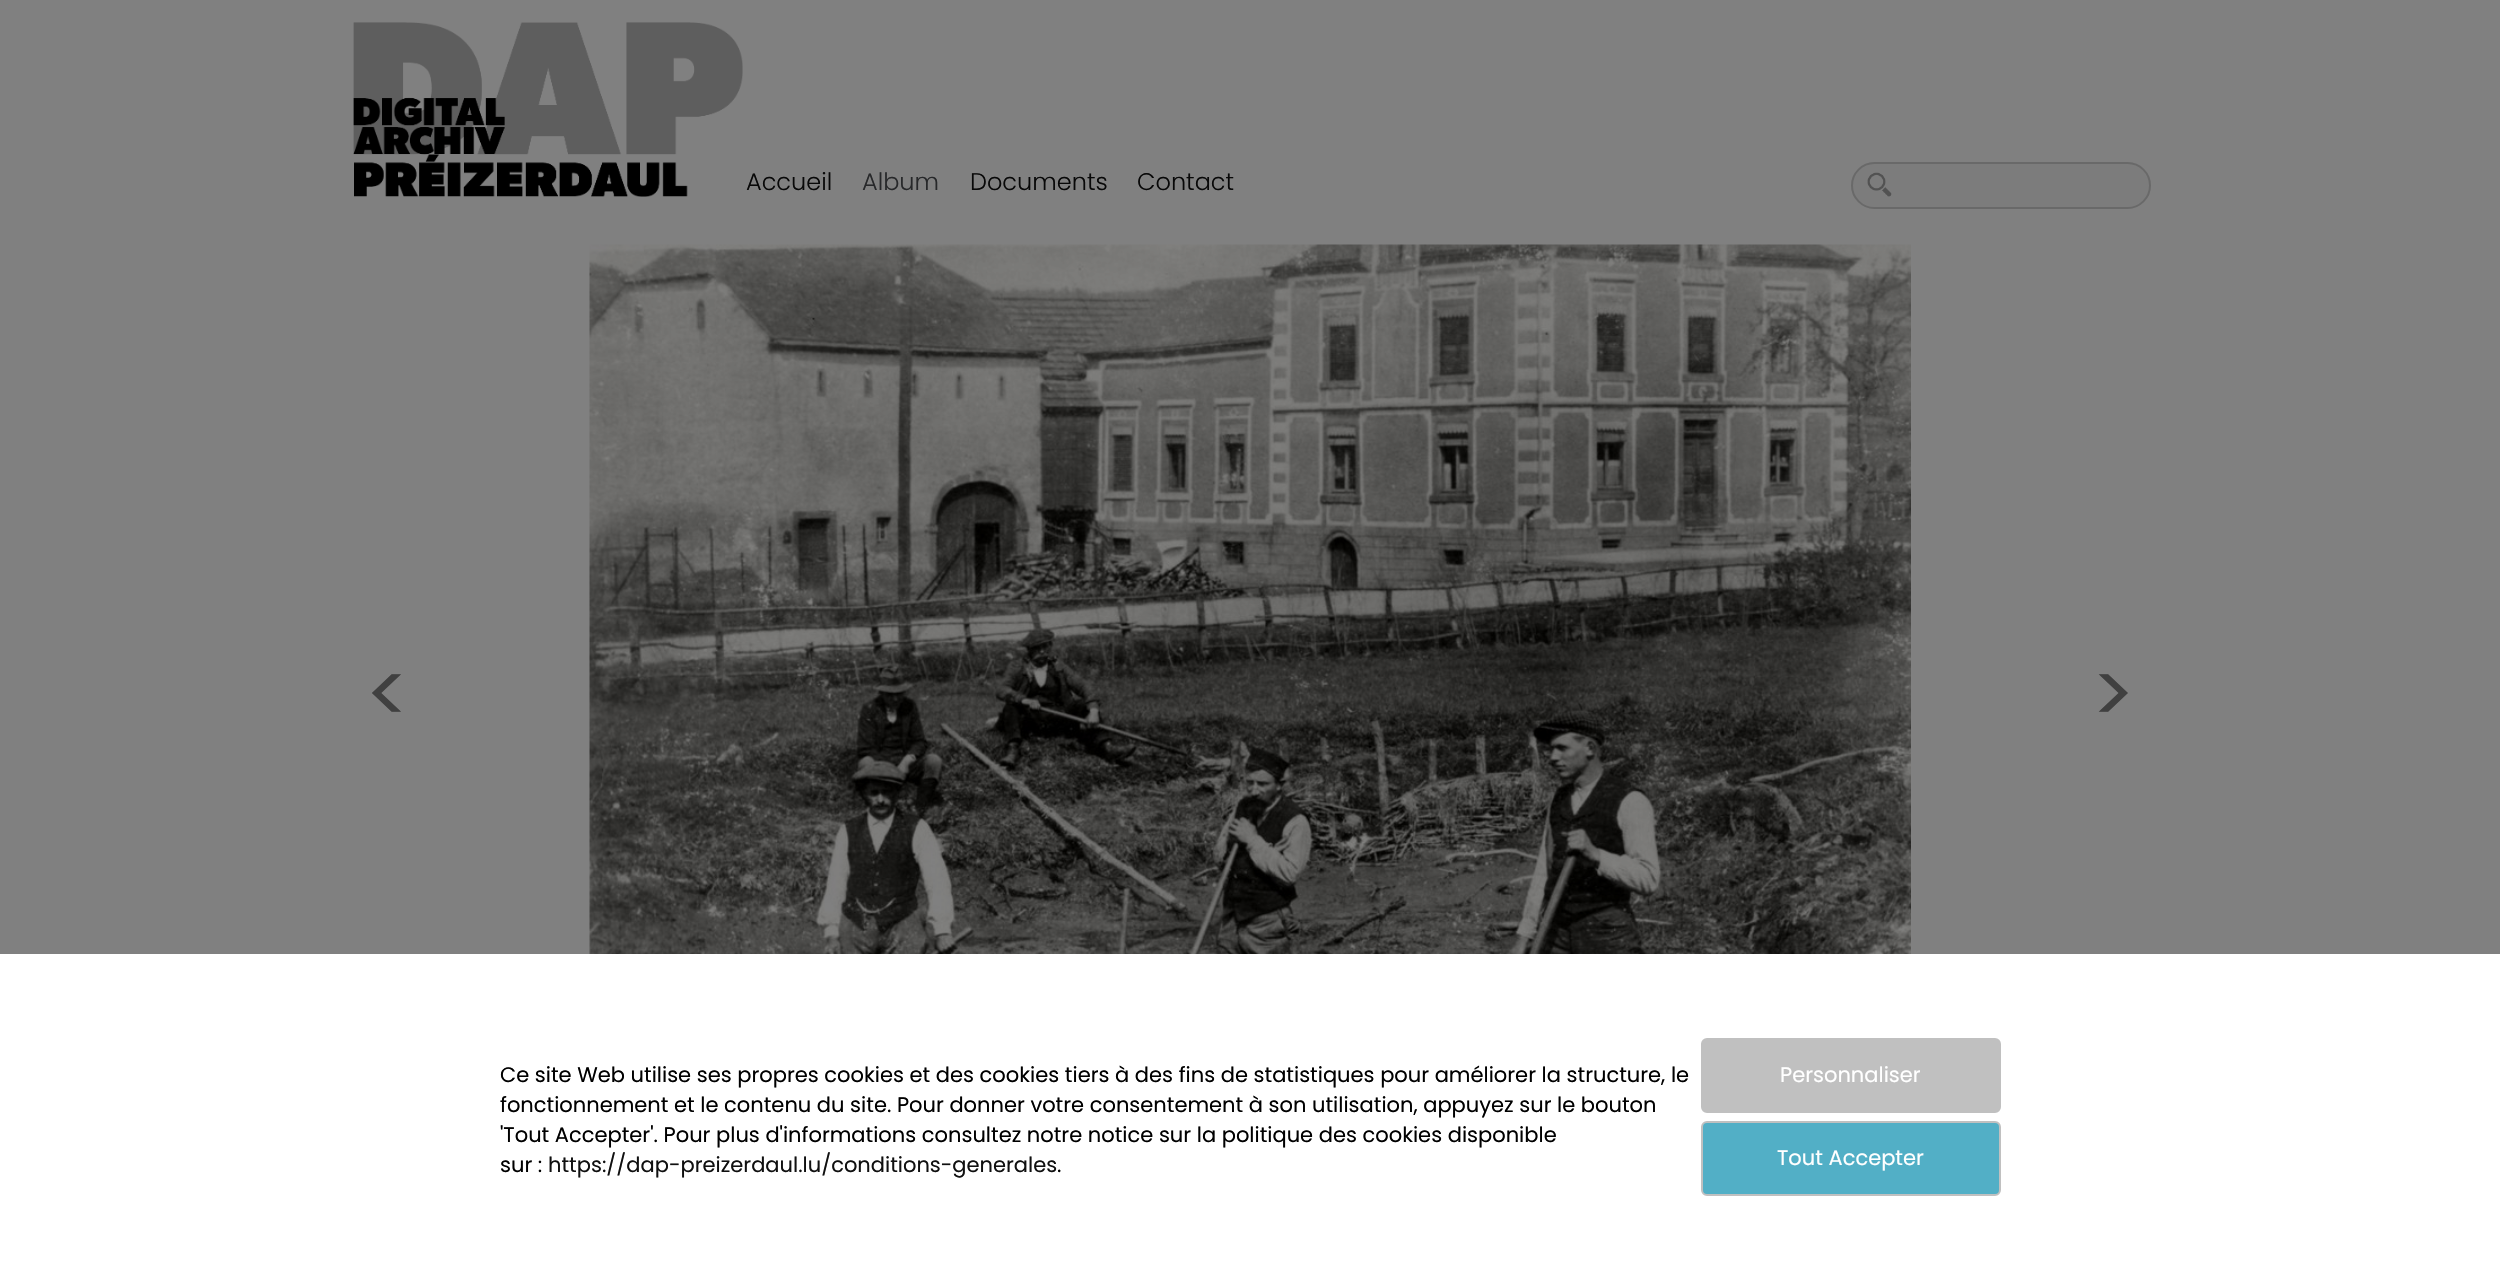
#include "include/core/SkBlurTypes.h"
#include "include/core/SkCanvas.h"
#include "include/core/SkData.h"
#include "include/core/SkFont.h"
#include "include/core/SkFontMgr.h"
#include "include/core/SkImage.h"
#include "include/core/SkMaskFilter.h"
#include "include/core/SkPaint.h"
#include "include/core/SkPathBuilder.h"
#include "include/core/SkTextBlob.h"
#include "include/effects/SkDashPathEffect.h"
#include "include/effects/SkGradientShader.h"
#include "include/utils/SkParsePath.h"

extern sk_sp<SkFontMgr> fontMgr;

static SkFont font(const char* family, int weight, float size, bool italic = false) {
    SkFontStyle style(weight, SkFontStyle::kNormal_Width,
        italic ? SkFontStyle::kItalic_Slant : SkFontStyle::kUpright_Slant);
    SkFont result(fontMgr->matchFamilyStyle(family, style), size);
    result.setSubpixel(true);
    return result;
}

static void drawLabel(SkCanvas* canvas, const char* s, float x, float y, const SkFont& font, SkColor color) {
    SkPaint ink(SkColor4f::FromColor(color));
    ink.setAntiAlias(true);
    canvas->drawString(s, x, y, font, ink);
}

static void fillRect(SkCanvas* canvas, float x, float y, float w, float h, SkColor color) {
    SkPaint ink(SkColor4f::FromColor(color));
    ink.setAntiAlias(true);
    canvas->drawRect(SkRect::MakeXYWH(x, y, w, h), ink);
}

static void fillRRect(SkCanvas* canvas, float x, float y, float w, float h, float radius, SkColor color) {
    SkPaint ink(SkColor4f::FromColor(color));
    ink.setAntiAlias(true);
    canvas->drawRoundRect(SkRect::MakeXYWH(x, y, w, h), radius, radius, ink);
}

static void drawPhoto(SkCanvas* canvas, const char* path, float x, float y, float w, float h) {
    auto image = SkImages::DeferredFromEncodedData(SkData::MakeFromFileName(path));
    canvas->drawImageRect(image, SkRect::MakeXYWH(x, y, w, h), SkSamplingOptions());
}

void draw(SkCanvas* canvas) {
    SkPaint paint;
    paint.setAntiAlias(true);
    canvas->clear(0xFF808080);
    drawPhoto(canvas, "assets/img1.png", 353, 22, 390, 175);
    SkFont font1 = font("Poppins", 300, 24);
    drawLabel(canvas, "Accueil", 746, 190, font1, 0xFF080808);
    drawLabel(canvas, "Album", 862, 190, font1, 0xFF27282A);
    drawLabel(canvas, "Documents", 970, 190, font1, 0xFF080808);
    drawLabel(canvas, "Contact", 1137, 190, font1, 0xFF080808);
    fillRRect(canvas, 1851, 162, 300, 47, 23.5f, 0xFF7C7C7C);
    drawPhoto(canvas, "assets/img2.png", 1867, 172, 25, 25);
    paint.setStroke(true);
    paint.setStrokeWidth(2);
    paint.setColor(0xFF696969);
    canvas->drawRoundRect(SkRect::MakeXYWH(1852, 163, 298, 45), 22.5f, 22.5f, paint);
    SkFont font2 = font("Poppins", 400, 82);
    drawLabel(canvas, "<", 365, 723, font2, 0xFF404040);
    drawPhoto(canvas, "assets/img3.png", 589, 244, 1322, 710);
    drawLabel(canvas, ">", 2091, 723, font2, 0xFF404040);
    fillRect(canvas, 0, 954, 2500, 333, 0xFFFFFFFF);
    SkFont font3 = font("Poppins", 400, 21);
    drawLabel(canvas, "Ce site Web utilise ses propres cookies et des cookies tiers à des fins de statistiques pour améliorer la structure, le", 500, 1082, font3, 0xFF000000);
    drawLabel(canvas, "fonctionnement et le contenu du site. Pour donner votre consentement à son utilisation, appuyez sur le bouton", 500, 1112, font3, 0xFF000000);
    drawLabel(canvas, "'Tout Accepter'. Pour plus d'informations consultez notre notice sur la politique des cookies disponible", 500, 1142, font3, 0xFF000000);
    drawLabel(canvas, "sur :", 500, 1172, font3, 0xFF000000);
    drawLabel(canvas, "https://dap-preizerdaul.lu/conditions-generales", 548, 1172, font3, 0xFF101010);
    drawLabel(canvas, ".", 1057, 1172, font3, 0xFF000000);
    paint.setStroke(false);
    paint.setColor(0xFFC0C0C0);
    canvas->drawRoundRect(SkRect::MakeXYWH(1702, 1039, 298, 73), 5, 5, paint);
    paint.setStroke(true);
    canvas->drawRoundRect(SkRect::MakeXYWH(1702, 1039, 298, 73), 5, 5, paint);
    drawLabel(canvas, "Personnaliser", 1780, 1082, font3, 0xFFFFFFFF);
    paint.setStroke(false);
    paint.setColor(0xFF52AFC6);
    canvas->drawRoundRect(SkRect::MakeXYWH(1702, 1122, 298, 73), 5, 5, paint);
    paint.setStroke(true);
    paint.setColor(0xFFC0C0C0);
    canvas->drawRoundRect(SkRect::MakeXYWH(1702, 1122, 298, 73), 5, 5, paint);
    drawLabel(canvas, "Tout Accepter", 1777, 1165, font3, 0xFFFFFFFF);
}
